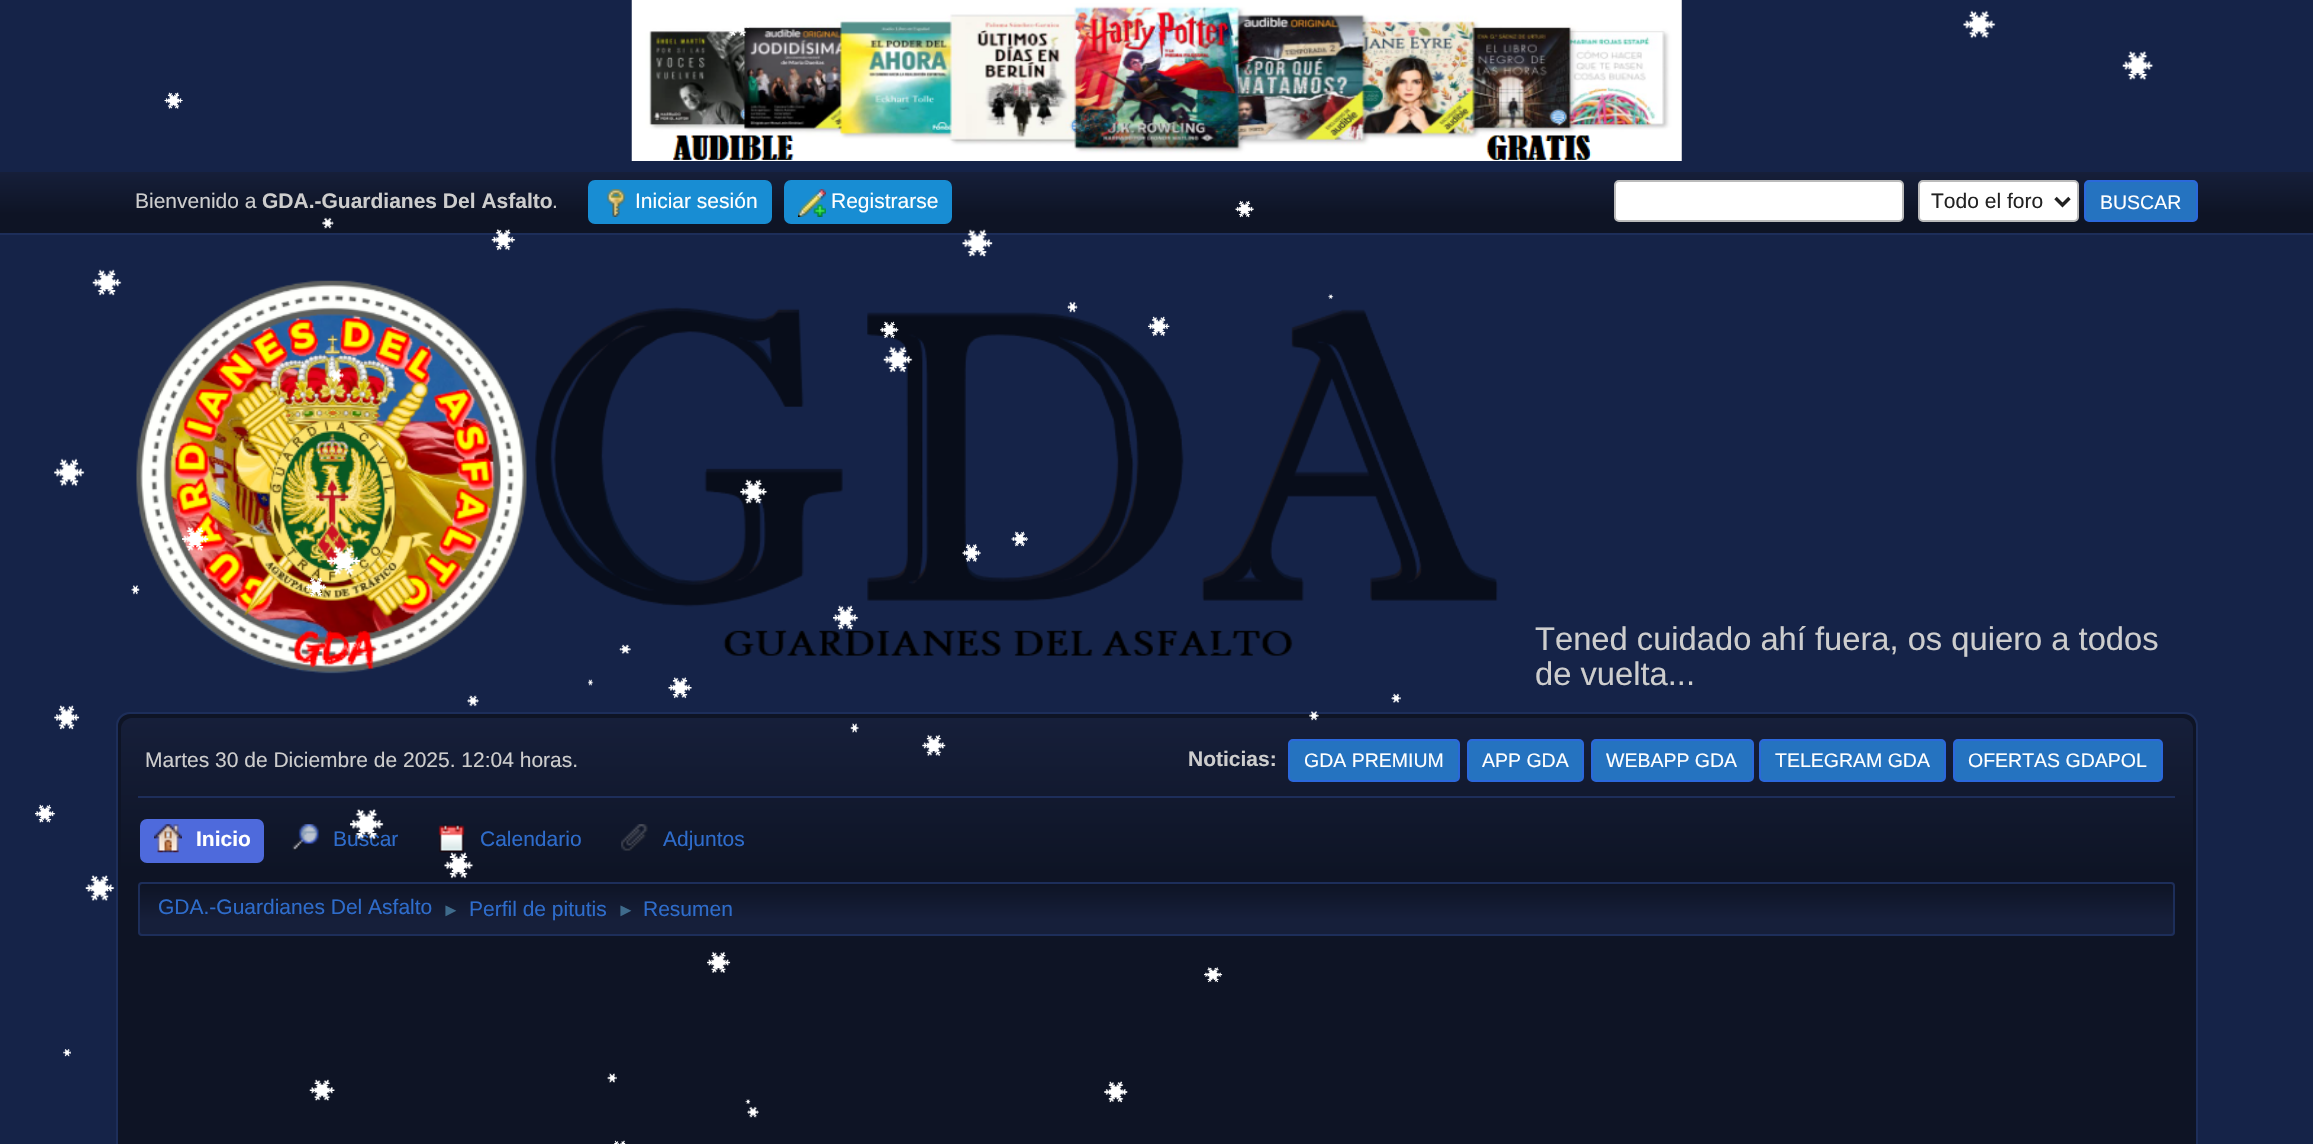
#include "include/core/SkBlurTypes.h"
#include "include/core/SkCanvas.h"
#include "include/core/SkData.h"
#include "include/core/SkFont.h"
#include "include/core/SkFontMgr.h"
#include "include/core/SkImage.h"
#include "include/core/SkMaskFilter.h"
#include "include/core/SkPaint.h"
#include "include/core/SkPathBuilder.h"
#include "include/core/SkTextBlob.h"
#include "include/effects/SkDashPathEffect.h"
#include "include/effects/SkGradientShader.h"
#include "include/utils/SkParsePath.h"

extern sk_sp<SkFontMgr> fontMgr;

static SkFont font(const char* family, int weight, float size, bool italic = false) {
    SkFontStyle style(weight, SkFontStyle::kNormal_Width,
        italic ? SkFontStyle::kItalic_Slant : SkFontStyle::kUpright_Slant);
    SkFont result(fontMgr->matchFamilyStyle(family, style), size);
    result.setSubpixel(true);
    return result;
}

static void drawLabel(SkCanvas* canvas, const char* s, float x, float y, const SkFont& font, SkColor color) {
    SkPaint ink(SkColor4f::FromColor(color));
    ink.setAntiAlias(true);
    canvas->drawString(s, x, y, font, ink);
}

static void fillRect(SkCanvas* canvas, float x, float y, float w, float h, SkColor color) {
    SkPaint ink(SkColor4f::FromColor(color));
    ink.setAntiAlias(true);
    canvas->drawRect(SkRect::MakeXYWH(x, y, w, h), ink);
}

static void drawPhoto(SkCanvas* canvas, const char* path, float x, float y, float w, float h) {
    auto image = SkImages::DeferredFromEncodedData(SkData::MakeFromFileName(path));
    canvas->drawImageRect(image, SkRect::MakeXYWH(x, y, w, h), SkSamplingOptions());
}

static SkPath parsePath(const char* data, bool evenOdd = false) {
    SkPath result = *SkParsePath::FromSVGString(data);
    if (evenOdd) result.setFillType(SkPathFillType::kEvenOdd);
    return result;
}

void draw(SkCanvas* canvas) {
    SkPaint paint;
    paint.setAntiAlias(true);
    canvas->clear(0xFF152348);
    drawPhoto(canvas, "assets/img5.png", 631, 0, 1051, 161);
    drawPhoto(canvas, "assets/img1.png", 729, 27, 20, 10);
    drawPhoto(canvas, "assets/img2.png", 1963, 10, 33, 29);
    drawPhoto(canvas, "assets/img3.png", 2122, 51, 32, 30);
    drawPhoto(canvas, "assets/img4.png", 164, 92, 19, 17);
    {
        const SkColor colors[] = {0xFF161F3A, 0xFF0E1425};
        const float stops[] = {0, 0.7f};
        const SkPoint ends[] = {{1157, 171}, {1157, 233}};
        paint.setShader(SkGradientShader::MakeLinear(ends, colors, stops, 2, SkTileMode::kClamp));
        paint.setAlpha(255);
    }
    canvas->drawRect(SkRect::MakeXYWH(0, 172, 2313, 61), paint);
    fillRect(canvas, 0, 233, 2313, 2, 0xFF1D2E5A);
    SkFont font1 = font("Liberation Sans", 400, 21);
    drawLabel(canvas, "Bienvenido a", 135, 208, font1, 0xFFCDCDCD);
    SkFont font2 = font("Liberation Sans", 700, 21);
    drawLabel(canvas, "GDA.-Guardianes Del Asfalto", 262, 208, font2, 0xFFCDCDCD);
    drawLabel(canvas, ".", 552, 208, font1, 0xFFCDCDCD);
    paint.setShader(nullptr);
    paint.setColor(0xFF188DD3);
    canvas->drawRoundRect(SkRect::MakeXYWH(589, 181, 182, 42), 6, 6, paint);
    paint.setStroke(true);
    paint.setStrokeWidth(2);
    canvas->drawRoundRect(SkRect::MakeXYWH(589, 181, 182, 42), 6, 6, paint);
    drawPhoto(canvas, "assets/img6.png", 606, 189, 20, 28);
    drawLabel(canvas, "Iniciar sesión", 635, 208, font1, 0xFFFFFFFF);
    paint.setStroke(false);
    canvas->drawRoundRect(SkRect::MakeXYWH(785, 181, 166, 42), 6, 6, paint);
    paint.setStroke(true);
    canvas->drawRoundRect(SkRect::MakeXYWH(785, 181, 166, 42), 6, 6, paint);
    drawPhoto(canvas, "assets/img7.png", 798, 189, 28, 28);
    drawLabel(canvas, "Registrarse", 831, 208, font1, 0xFFFFFFFF);
    paint.setStroke(false);
    paint.setColor(0xFFFFFFFF);
    canvas->drawRoundRect(SkRect::MakeXYWH(1615, 181, 288, 40), 4, 4, paint);
    paint.setStroke(true);
    paint.setColor(0xFFBBBBBB);
    canvas->drawRoundRect(SkRect::MakeXYWH(1615, 181, 288, 40), 4, 4, paint);
    paint.setStroke(false);
    paint.setColor(0xFFFFFFFF);
    canvas->drawRoundRect(SkRect::MakeXYWH(1919, 181, 159, 40), 4, 4, paint);
    paint.setStroke(true);
    paint.setColor(0xFFBBBBBB);
    canvas->drawRoundRect(SkRect::MakeXYWH(1919, 181, 159, 40), 4, 4, paint);
    paint.setStrokeWidth(3.5f);
    paint.setColor(0xFF222222);
    canvas->drawPath(parsePath("M2055.5 198L2062.5 205L2069.5 198"), paint);
    drawLabel(canvas, "Todo el foro", 1931, 208, font1, 0xFF222222);
    paint.setStroke(false);
    paint.setColor(0xFF2573C0);
    canvas->drawRoundRect(SkRect::MakeXYWH(2085, 181, 112, 40), 4, 4, paint);
    paint.setStroke(true);
    paint.setStrokeWidth(2);
    paint.setColor(0xFF2B68DB);
    canvas->drawRoundRect(SkRect::MakeXYWH(2085, 181, 112, 40), 4, 4, paint);
    SkFont font3 = font("Liberation Sans", 400, 19.5f);
    drawLabel(canvas, "BUSCAR", 2100, 209, font3, 0xFFFFFFFF);
    drawPhoto(canvas, "assets/img8.png", 136, 280, 1362, 394);
    SkFont font4 = font("Liberation Sans", 400, 32.7f);
    drawLabel(canvas, "Tened cuidado ahí fuera, os quiero a todos", 1535, 650, font4, 0xFFCDCDCD);
    drawLabel(canvas, "de vuelta...", 1535, 685, font4, 0xFFCDCDCD);
    paint.setStroke(false);
    paint.setColor(0xFF0E1425);
    canvas->drawRoundRect(SkRect::MakeXYWH(117, 713, 2080, 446), 13, 13, paint);
    paint.setStroke(true);
    paint.setColor(0xFF1D2E5A);
    canvas->drawRoundRect(SkRect::MakeXYWH(117, 713, 2080, 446), 13, 13, paint);
    paint.setStroke(false);
    {
        const SkColor colors[] = {0xFF161F3A, 0xFF0E1425};
        const float stops[] = {0, 0.7f};
        const SkPoint ends[] = {{1157, 717}, {1157, 940}};
        paint.setShader(SkGradientShader::MakeLinear(ends, colors, stops, 2, SkTileMode::kClamp));
        paint.setAlpha(255);
    }
    canvas->drawPath(parsePath("M132 718H2182C2188 718 2193 723 2193 729V940H121V729C121 723 126 718 132 718Z"), paint);
    fillRect(canvas, 138, 796, 2037, 2, 0xFF1D2E5A);
    drawLabel(canvas, "Martes 30 de Diciembre de 2025. 12:04 horas.", 145, 767, font1, 0xFFCDCDCD);
    drawLabel(canvas, "Noticias:", 1188, 766, font2, 0xFFCDCDCD);
    paint.setShader(nullptr);
    paint.setColor(0xFF2573C0);
    canvas->drawRoundRect(SkRect::MakeXYWH(1289, 740, 170, 41), 4, 4, paint);
    paint.setStroke(true);
    paint.setColor(0xFF2B68DB);
    canvas->drawRoundRect(SkRect::MakeXYWH(1289, 740, 170, 41), 4, 4, paint);
    drawLabel(canvas, "GDA PREMIUM", 1304, 767, font3, 0xFFFFFFFF);
    paint.setStroke(false);
    paint.setColor(0xFF2573C0);
    canvas->drawRoundRect(SkRect::MakeXYWH(1468, 740, 115, 41), 4, 4, paint);
    paint.setStroke(true);
    paint.setColor(0xFF2B68DB);
    canvas->drawRoundRect(SkRect::MakeXYWH(1468, 740, 115, 41), 4, 4, paint);
    drawLabel(canvas, "APP GDA", 1482, 767, font3, 0xFFFFFFFF);
    paint.setStroke(false);
    paint.setColor(0xFF2573C0);
    canvas->drawRoundRect(SkRect::MakeXYWH(1592, 740, 161, 41), 4, 4, paint);
    paint.setStroke(true);
    paint.setColor(0xFF2B68DB);
    canvas->drawRoundRect(SkRect::MakeXYWH(1592, 740, 161, 41), 4, 4, paint);
    drawLabel(canvas, "WEBAPP GDA", 1606, 767, font3, 0xFFFFFFFF);
    paint.setStroke(false);
    paint.setColor(0xFF2573C0);
    canvas->drawRoundRect(SkRect::MakeXYWH(1760, 740, 185, 41), 4, 4, paint);
    paint.setStroke(true);
    paint.setColor(0xFF2B68DB);
    canvas->drawRoundRect(SkRect::MakeXYWH(1760, 740, 185, 41), 4, 4, paint);
    drawLabel(canvas, "TELEGRAM GDA", 1775, 767, font3, 0xFFFFFFFF);
    paint.setStroke(false);
    paint.setColor(0xFF2573C0);
    canvas->drawRoundRect(SkRect::MakeXYWH(1954, 740, 208, 41), 4, 4, paint);
    paint.setStroke(true);
    paint.setColor(0xFF2B68DB);
    canvas->drawRoundRect(SkRect::MakeXYWH(1954, 740, 208, 41), 4, 4, paint);
    drawLabel(canvas, "OFERTAS GDAPOL", 1968, 767, font3, 0xFFFFFFFF);
    paint.setStroke(false);
    paint.setColor(0xFF4E6ADC);
    canvas->drawRoundRect(SkRect::MakeXYWH(141, 820, 122, 42), 6, 6, paint);
    paint.setStroke(true);
    canvas->drawRoundRect(SkRect::MakeXYWH(141, 820, 122, 42), 6, 6, paint);
    drawPhoto(canvas, "assets/img9.png", 154, 824, 28, 29);
    drawLabel(canvas, "Inicio", 196, 846, font2, 0xFFFFFFFF);
    drawPhoto(canvas, "assets/img10.png", 292, 824, 27, 27);
    drawLabel(canvas, "Buscar", 333, 846, font1, 0xFF2E6CCB);
    drawPhoto(canvas, "assets/img11.png", 438, 824, 27, 29);
    drawLabel(canvas, "Calendario", 480, 846, font1, 0xFF2E6CCB);
    drawPhoto(canvas, "assets/img12.png", 621, 824, 27, 27);
    drawLabel(canvas, "Adjuntos", 663, 846, font1, 0xFF2E6CCB);
    canvas->save();
    canvas->clipPath(parsePath("M142 882H2171C2173 882 2175 884 2175 886V932C2175 934 2173 936 2171 936H142C140 936 138 934 138 932V886C138 884 140 882 142 882Z"), true);
    paint.setStroke(false);
    {
        const SkColor colors[] = {0xFF0E1425, 0xFF161F3A};
        const float stops[] = {0, 0.7f};
        const SkPoint ends[] = {{1157, 884}, {1157, 935}};
        paint.setShader(SkGradientShader::MakeLinear(ends, colors, stops, 2, SkTileMode::kClamp));
        paint.setAlpha(255);
    }
    canvas->drawRect(SkRect::MakeXYWH(138, 884, 2037, 51), paint);
    canvas->restore();
    paint.setStroke(true);
    paint.setShader(nullptr);
    paint.setColor(0xFF1D2E5A);
    canvas->drawRoundRect(SkRect::MakeXYWH(139, 883, 2035, 52), 3, 3, paint);
    drawLabel(canvas, "GDA.-Guardianes Del Asfalto", 158, 914, font1, 0xFF2E6CCB);
    SkFont font5 = font("Liberation Sans", 400, 18);
    drawLabel(canvas, "►", 442, 916, font5, 0xFF3F6B8C);
    drawLabel(canvas, "Perfil de pitutis", 469, 916, font1, 0xFF2E6CCB);
    drawLabel(canvas, "►", 617, 916, font5, 0xFF3F6B8C);
    drawLabel(canvas, "Resumen", 643, 916, font1, 0xFF2E6CCB);
    drawPhoto(canvas, "assets/img13.png", 1235, 200, 19, 18);
    drawPhoto(canvas, "assets/img14.png", 322, 217, 12, 12);
    drawPhoto(canvas, "assets/img15.png", 491, 229, 25, 22);
    drawPhoto(canvas, "assets/img16.png", 962, 229, 31, 28);
    drawPhoto(canvas, "assets/img17.png", 92, 269, 30, 27);
    drawPhoto(canvas, "assets/img18.png", 1328, 294, 6, 5);
    drawPhoto(canvas, "assets/img19.png", 1067, 301, 11, 12);
    drawPhoto(canvas, "assets/img20.png", 880, 321, 19, 18);
    drawPhoto(canvas, "assets/img21.png", 1148, 316, 22, 21);
    drawPhoto(canvas, "assets/img22.png", 883, 346, 30, 27);
    drawPhoto(canvas, "assets/img23.png", 329, 368, 15, 15);
    drawPhoto(canvas, "assets/img24.png", 54, 458, 31, 29);
    drawPhoto(canvas, "assets/img25.png", 740, 479, 28, 25);
    drawPhoto(canvas, "assets/img26.png", 182, 526, 27, 26);
    drawPhoto(canvas, "assets/img27.png", 1011, 531, 18, 16);
    drawPhoto(canvas, "assets/img28.png", 327, 546, 34, 30);
    drawPhoto(canvas, "assets/img29.png", 962, 544, 19, 18);
    drawPhoto(canvas, "assets/img30.png", 131, 585, 9, 10);
    drawPhoto(canvas, "assets/img31.png", 306, 577, 21, 20);
    drawPhoto(canvas, "assets/img32.png", 833, 605, 26, 25);
    drawPhoto(canvas, "assets/img33.png", 619, 644, 12, 10);
    drawPhoto(canvas, "assets/img34.png", 588, 679, 6, 7);
    drawPhoto(canvas, "assets/img35.png", 668, 677, 24, 22);
    drawPhoto(canvas, "assets/img36.png", 467, 695, 12, 12);
    drawPhoto(canvas, "assets/img37.png", 1391, 693, 10, 10);
    drawPhoto(canvas, "assets/img38.png", 54, 705, 26, 25);
    drawPhoto(canvas, "assets/img39.png", 1309, 711, 10, 10);
    drawPhoto(canvas, "assets/img40.png", 850, 723, 9, 10);
    drawPhoto(canvas, "assets/img41.png", 922, 734, 24, 23);
    drawPhoto(canvas, "assets/img42.png", 35, 804, 21, 19);
    drawPhoto(canvas, "assets/img43.png", 350, 809, 34, 31);
    drawPhoto(canvas, "assets/img44.png", 444, 852, 30, 27);
    drawPhoto(canvas, "assets/img45.png", 85, 875, 30, 26);
    drawPhoto(canvas, "assets/img46.png", 707, 951, 24, 22);
    drawPhoto(canvas, "assets/img47.png", 1204, 967, 19, 16);
    drawPhoto(canvas, "assets/img48.png", 63, 1049, 8, 8);
    drawPhoto(canvas, "assets/img49.png", 607, 1073, 10, 10);
    drawPhoto(canvas, "assets/img50.png", 309, 1079, 26, 22);
    drawPhoto(canvas, "assets/img51.png", 745, 1099, 6, 5);
    drawPhoto(canvas, "assets/img52.png", 1104, 1081, 24, 22);
    drawPhoto(canvas, "assets/img53.png", 747, 1106, 12, 12);
    drawPhoto(canvas, "assets/img54.png", 614, 1140, 12, 4);
}
